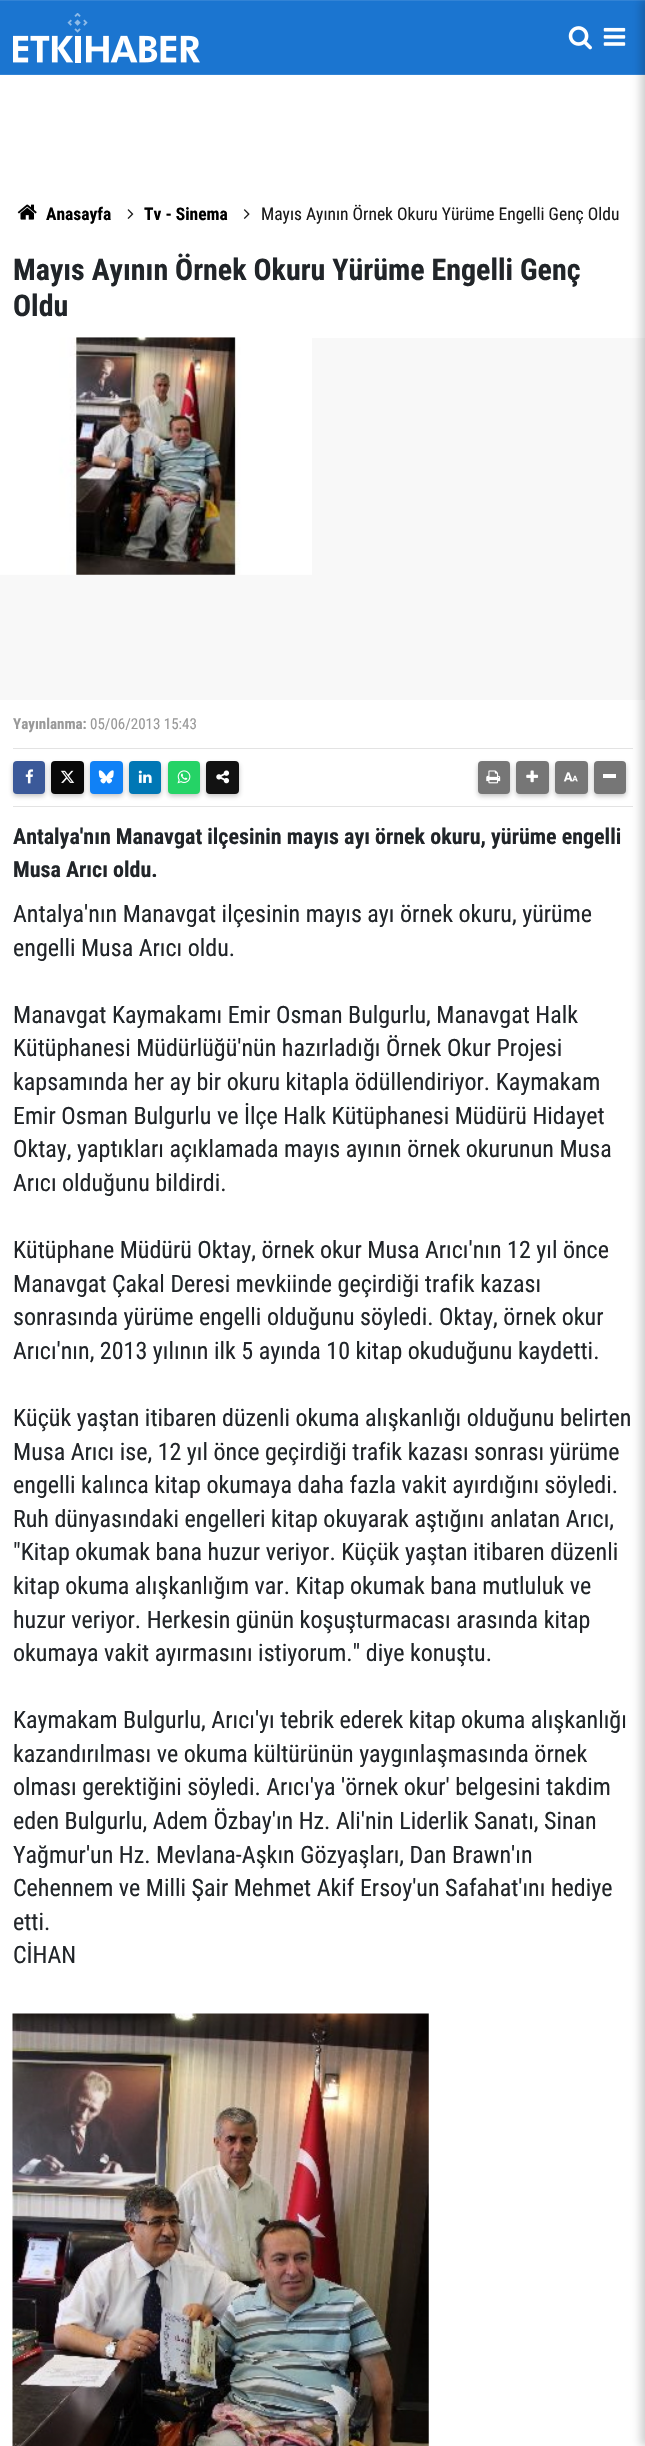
#include "include/core/SkBlurTypes.h"
#include "include/core/SkCanvas.h"
#include "include/core/SkData.h"
#include "include/core/SkFont.h"
#include "include/core/SkFontMgr.h"
#include "include/core/SkImage.h"
#include "include/core/SkMaskFilter.h"
#include "include/core/SkPaint.h"
#include "include/core/SkPathBuilder.h"
#include "include/core/SkTextBlob.h"
#include "include/effects/SkDashPathEffect.h"
#include "include/effects/SkGradientShader.h"
#include "include/utils/SkParsePath.h"

extern sk_sp<SkFontMgr> fontMgr;

static SkFont font(const char* family, int weight, float size, bool italic = false) {
    SkFontStyle style(weight, SkFontStyle::kNormal_Width,
        italic ? SkFontStyle::kItalic_Slant : SkFontStyle::kUpright_Slant);
    SkFont result(fontMgr->matchFamilyStyle(family, style), size);
    result.setSubpixel(true);
    return result;
}

static void drawLabel(SkCanvas* canvas, const char* s, float x, float y, const SkFont& font, SkColor color) {
    SkPaint ink(SkColor4f::FromColor(color));
    ink.setAntiAlias(true);
    canvas->drawString(s, x, y, font, ink);
}

static void fillRect(SkCanvas* canvas, float x, float y, float w, float h, SkColor color) {
    SkPaint ink(SkColor4f::FromColor(color));
    ink.setAntiAlias(true);
    canvas->drawRect(SkRect::MakeXYWH(x, y, w, h), ink);
}

static void fillRRect(SkCanvas* canvas, float x, float y, float w, float h, float radius, SkColor color) {
    SkPaint ink(SkColor4f::FromColor(color));
    ink.setAntiAlias(true);
    canvas->drawRoundRect(SkRect::MakeXYWH(x, y, w, h), radius, radius, ink);
}

static void drawPhoto(SkCanvas* canvas, const char* path, float x, float y, float w, float h) {
    auto image = SkImages::DeferredFromEncodedData(SkData::MakeFromFileName(path));
    canvas->drawImageRect(image, SkRect::MakeXYWH(x, y, w, h), SkSamplingOptions());
}

void draw(SkCanvas* canvas) {
    SkPaint paint;
    paint.setAntiAlias(true);
    canvas->clear(0xFFFFFFFF);
    fillRect(canvas, 0, 1, 645, 73, 0xFF1B75D0);
    fillRect(canvas, 0, 0, 645, 1, 0xFF3283D5);
    fillRect(canvas, 0, 74, 645, 1, 0xFF3283D5);
    drawPhoto(canvas, "assets/img1.png", 13, 13, 187, 50);
    drawPhoto(canvas, "assets/img2.png", 568, 26, 24, 24);
    drawPhoto(canvas, "assets/img3.png", 603, 27, 23, 19);
    fillRect(canvas, 0, 338, 645, 362, 0xFFF8F8F8);
    fillRect(canvas, 13, 748, 620, 1, 0xFFE3E3E3);
    fillRect(canvas, 13, 806, 620, 1, 0xFFE3E3E3);
    paint.setColor(0x4D323232);
    paint.setMaskFilter(SkMaskFilter::MakeBlur(kNormal_SkBlurStyle, 2.5f));
    canvas->drawRoundRect(SkRect::MakeXYWH(478, 764, 32, 32), 4, 4, paint);
    paint.setMaskFilter(nullptr);
    fillRRect(canvas, 478, 761, 32, 33, 4, 0xFF767676);
    paint.setMaskFilter(SkMaskFilter::MakeBlur(kNormal_SkBlurStyle, 2.5f));
    canvas->drawRoundRect(SkRect::MakeXYWH(516, 764, 33, 32), 4, 4, paint);
    paint.setMaskFilter(nullptr);
    fillRRect(canvas, 516, 761, 33, 33, 4, 0xFF767676);
    paint.setMaskFilter(SkMaskFilter::MakeBlur(kNormal_SkBlurStyle, 2.5f));
    canvas->drawRoundRect(SkRect::MakeXYWH(555, 764, 33, 32), 4, 4, paint);
    paint.setMaskFilter(nullptr);
    fillRRect(canvas, 555, 761, 33, 33, 4, 0xFF767676);
    paint.setMaskFilter(SkMaskFilter::MakeBlur(kNormal_SkBlurStyle, 2.5f));
    canvas->drawRoundRect(SkRect::MakeXYWH(594, 764, 32, 32), 4, 4, paint);
    paint.setMaskFilter(nullptr);
    fillRRect(canvas, 594, 761, 32, 33, 4, 0xFF767676);
    paint.setColor(0x33000000);
    paint.setMaskFilter(SkMaskFilter::MakeBlur(kNormal_SkBlurStyle, 5));
    canvas->drawRect(SkRect::MakeXYWH(641, 0, 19, 2446), paint);
    paint.setMaskFilter(nullptr);
    drawPhoto(canvas, "assets/img4.png", 17, 204, 20, 16);
    SkFont font1 = font("Roboto Condensed", 700, 17.5f);
    drawLabel(canvas, "Anasayfa", 46, 220, font1, 0xFF000000);
    drawPhoto(canvas, "assets/img5.png", 127, 209, 7, 10);
    drawLabel(canvas, "Tv - Sinema", 144, 220, font1, 0xFF000000);
    drawPhoto(canvas, "assets/img6.png", 243, 209, 7, 10);
    SkFont font2 = font("Roboto Condensed", 400, 17.5f);
    drawLabel(canvas, "Mayıs Ayının Örnek Okuru Yürüme Engelli Genç Oldu", 261, 220, font2, 0xFF1A1A1A);
    SkFont font3 = font("Roboto Condensed", 700, 30);
    drawLabel(canvas, "Mayıs Ayının Örnek Okuru Yürüme Engelli Genç", 13, 280, font3, 0xFF212529);
    drawLabel(canvas, "Oldu", 13, 316, font3, 0xFF212529);
    drawPhoto(canvas, "assets/img7.png", 0, 337, 312, 238);
    SkFont font4 = font("Roboto Condensed", 700, 15);
    drawLabel(canvas, "Yayınlanma:", 13, 729, font4, 0xFF999999);
    SkFont font5 = font("Roboto Condensed", 400, 15);
    drawLabel(canvas, "05/06/2013 15:43", 90, 729, font5, 0xFF999999);
    paint.setColor(0x4D323232);
    paint.setMaskFilter(SkMaskFilter::MakeBlur(kNormal_SkBlurStyle, 2.5f));
    canvas->drawRoundRect(SkRect::MakeXYWH(13, 764, 32, 32), 4, 4, paint);
    paint.setMaskFilter(nullptr);
    fillRRect(canvas, 13, 761, 32, 33, 4, 0xFF3B5999);
    drawPhoto(canvas, "assets/img8.png", 25, 769, 9, 15);
    paint.setMaskFilter(SkMaskFilter::MakeBlur(kNormal_SkBlurStyle, 2.5f));
    canvas->drawRoundRect(SkRect::MakeXYWH(51, 764, 33, 32), 4, 4, paint);
    paint.setMaskFilter(nullptr);
    fillRRect(canvas, 51, 761, 33, 33, 4, 0xFF080808);
    drawPhoto(canvas, "assets/img9.png", 60, 770, 15, 13);
    paint.setMaskFilter(SkMaskFilter::MakeBlur(kNormal_SkBlurStyle, 2.5f));
    canvas->drawRoundRect(SkRect::MakeXYWH(90, 764, 33, 32), 4, 4, paint);
    paint.setMaskFilter(nullptr);
    fillRRect(canvas, 90, 761, 33, 33, 4, 0xFF1081F6);
    drawPhoto(canvas, "assets/img10.png", 98, 770, 16, 14);
    paint.setMaskFilter(SkMaskFilter::MakeBlur(kNormal_SkBlurStyle, 2.5f));
    canvas->drawRoundRect(SkRect::MakeXYWH(129, 764, 32, 32), 4, 4, paint);
    paint.setMaskFilter(nullptr);
    fillRRect(canvas, 129, 761, 32, 33, 4, 0xFF0077B5);
    drawPhoto(canvas, "assets/img11.png", 138, 770, 14, 13);
    paint.setMaskFilter(SkMaskFilter::MakeBlur(kNormal_SkBlurStyle, 2.5f));
    canvas->drawRoundRect(SkRect::MakeXYWH(168, 764, 32, 32), 4, 4, paint);
    paint.setMaskFilter(nullptr);
    fillRRect(canvas, 168, 761, 32, 33, 4, 0xFF25D366);
    drawPhoto(canvas, "assets/img12.png", 177, 770, 14, 14);
    paint.setMaskFilter(SkMaskFilter::MakeBlur(kNormal_SkBlurStyle, 2.5f));
    canvas->drawRoundRect(SkRect::MakeXYWH(206, 764, 33, 32), 4, 4, paint);
    paint.setMaskFilter(nullptr);
    fillRRect(canvas, 206, 761, 33, 33, 4, 0xFF121212);
    drawPhoto(canvas, "assets/img13.png", 216, 770, 14, 14);
    drawPhoto(canvas, "assets/img14.png", 486, 770, 15, 14);
    drawPhoto(canvas, "assets/img15.png", 526, 770, 13, 13);
    drawPhoto(canvas, "assets/img16.png", 563, 772, 15, 10);
    fillRect(canvas, 603, 774, 13, 4, 0xFFFFFFFF);
    SkFont font6 = font("Roboto Condensed", 700, 22);
    drawLabel(canvas, "Antalya'nın Manavgat ilçesinin mayıs ayı örnek okuru, yürüme engelli", 13, 844, font6, 0xFF212529);
    drawLabel(canvas, "Musa Arıcı oldu.", 13, 877, font6, 0xFF212529);
    SkFont font7 = font("Roboto Condensed", 400, 24);
    drawLabel(canvas, "Antalya'nın Manavgat ilçesinin mayıs ayı örnek okuru, yürüme", 13, 922, font7, 0xFF212529);
    drawLabel(canvas, "engelli Musa Arıcı oldu.", 13, 956, font7, 0xFF212529);
    drawLabel(canvas, "Manavgat Kaymakamı Emir Osman Bulgurlu, Manavgat Halk", 13, 1023, font7, 0xFF212529);
    drawLabel(canvas, "Kütüphanesi Müdürlüğü'nün hazırladığı Örnek Okur Projesi", 13, 1056, font7, 0xFF212529);
    drawLabel(canvas, "kapsamında her ay bir okuru kitapla ödüllendiriyor. Kaymakam", 13, 1090, font7, 0xFF212529);
    drawLabel(canvas, "Emir Osman Bulgurlu ve İlçe Halk Kütüphanesi Müdürü Hidayet", 13, 1124, font7, 0xFF212529);
    drawLabel(canvas, "Oktay, yaptıkları açıklamada mayıs ayının örnek okurunun Musa", 13, 1157, font7, 0xFF212529);
    drawLabel(canvas, "Arıcı olduğunu bildirdi.", 13, 1191, font7, 0xFF212529);
    drawLabel(canvas, "Kütüphane Müdürü Oktay, örnek okur Musa Arıcı'nın 12 yıl önce", 13, 1258, font7, 0xFF212529);
    drawLabel(canvas, "Manavgat Çakal Deresi mevkiinde geçirdiği trafik kazası", 13, 1292, font7, 0xFF212529);
    drawLabel(canvas, "sonrasında yürüme engelli olduğunu söyledi. Oktay, örnek okur", 13, 1325, font7, 0xFF212529);
    drawLabel(canvas, "Arıcı'nın, 2013 yılının ilk 5 ayında 10 kitap okuduğunu kaydetti.", 13, 1359, font7, 0xFF212529);
    drawLabel(canvas, "Küçük yaştan itibaren düzenli okuma alışkanlığı olduğunu belirten", 13, 1426, font7, 0xFF212529);
    drawLabel(canvas, "Musa Arıcı ise, 12 yıl önce geçirdiği trafik kazası sonrası yürüme", 13, 1460, font7, 0xFF212529);
    drawLabel(canvas, "engelli kalınca kitap okumaya daha fazla vakit ayırdığını söyledi.", 13, 1493, font7, 0xFF212529);
    drawLabel(canvas, "Ruh dünyasındaki engelleri kitap okuyarak aştığını anlatan Arıcı,", 13, 1527, font7, 0xFF212529);
    drawLabel(canvas, "\"Kitap okumak bana huzur veriyor. Küçük yaştan itibaren düzenli", 13, 1560, font7, 0xFF212529);
    drawLabel(canvas, "kitap okuma alışkanlığım var. Kitap okumak bana mutluluk ve", 13, 1594, font7, 0xFF212529);
    drawLabel(canvas, "huzur veriyor. Herkesin günün koşuşturmacası arasında kitap", 13, 1628, font7, 0xFF212529);
    drawLabel(canvas, "okumaya vakit ayırmasını istiyorum.\" diye konuştu.", 13, 1661, font7, 0xFF212529);
    drawLabel(canvas, "Kaymakam Bulgurlu, Arıcı'yı tebrik ederek kitap okuma alışkanlığı", 13, 1728, font7, 0xFF212529);
    drawLabel(canvas, "kazandırılması ve okuma kültürünün yaygınlaşmasında örnek", 13, 1762, font7, 0xFF212529);
    drawLabel(canvas, "olması gerektiğini söyledi. Arıcı'ya 'örnek okur' belgesini takdim", 13, 1795, font7, 0xFF212529);
    drawLabel(canvas, "eden Bulgurlu, Adem Özbay'ın Hz. Ali'nin Liderlik Sanatı, Sinan", 13, 1829, font7, 0xFF212529);
    drawLabel(canvas, "Yağmur'un Hz. Mevlana-Aşkın Gözyaşları, Dan Brawn'ın", 13, 1863, font7, 0xFF212529);
    drawLabel(canvas, "Cehennem ve Milli Şair Mehmet Akif Ersoy'un Safahat'ını hediye", 13, 1896, font7, 0xFF212529);
    drawLabel(canvas, "etti.", 13, 1930, font7, 0xFF212529);
    drawLabel(canvas, "CİHAN", 13, 1963, font7, 0xFF212529);
    drawPhoto(canvas, "assets/img17.png", 12, 2013, 417, 433);
}
